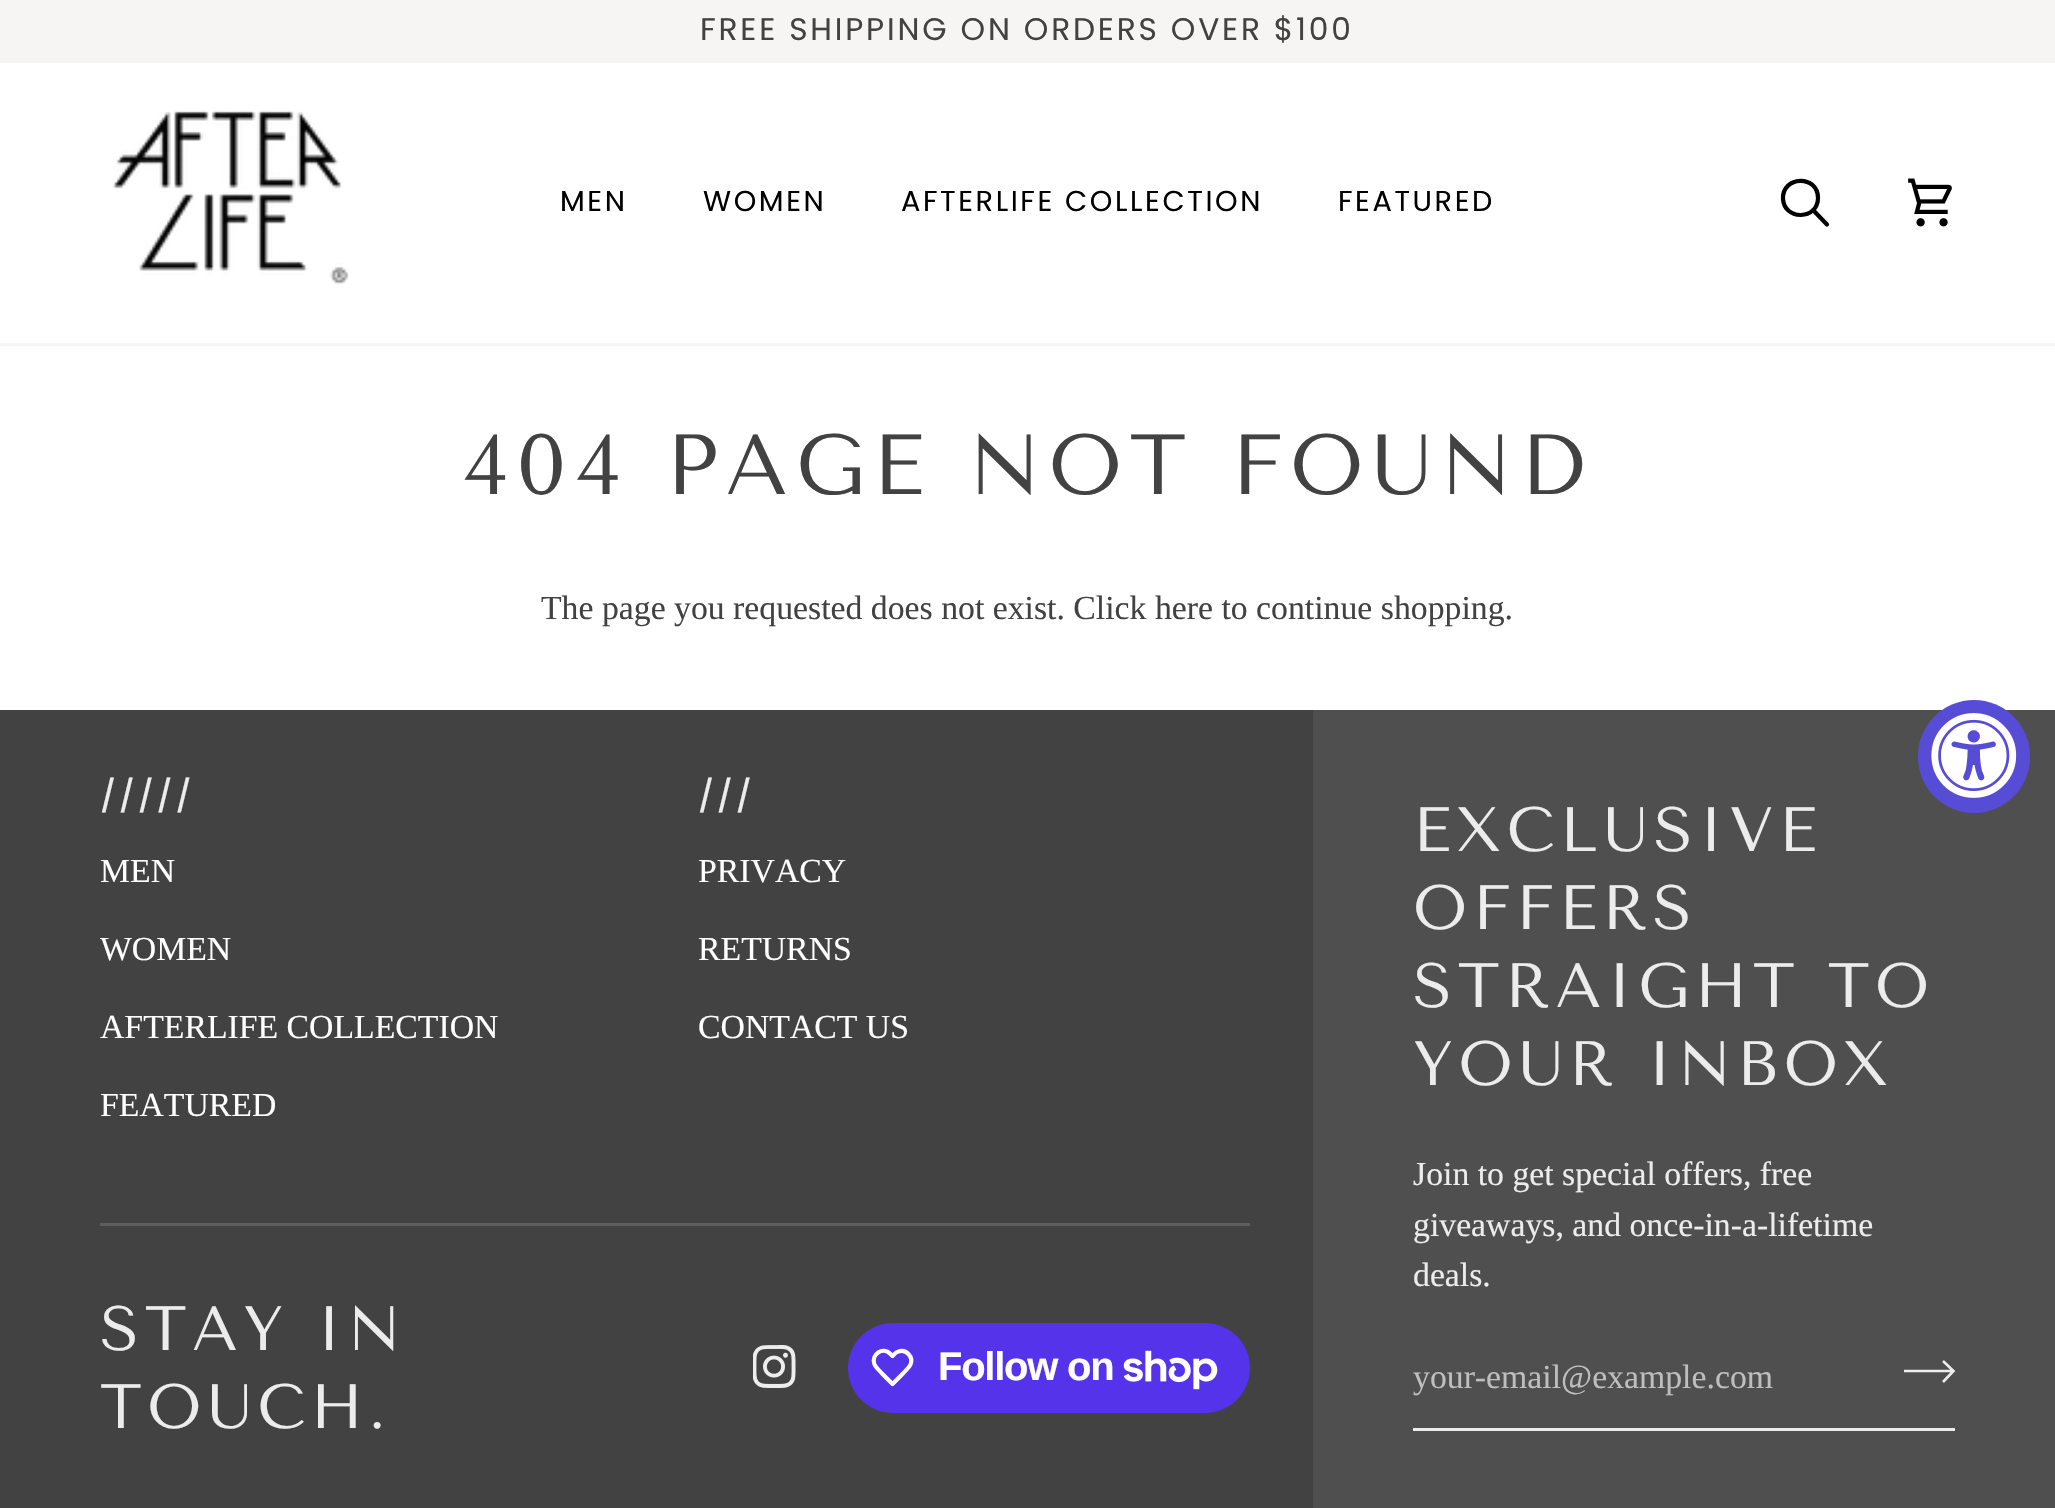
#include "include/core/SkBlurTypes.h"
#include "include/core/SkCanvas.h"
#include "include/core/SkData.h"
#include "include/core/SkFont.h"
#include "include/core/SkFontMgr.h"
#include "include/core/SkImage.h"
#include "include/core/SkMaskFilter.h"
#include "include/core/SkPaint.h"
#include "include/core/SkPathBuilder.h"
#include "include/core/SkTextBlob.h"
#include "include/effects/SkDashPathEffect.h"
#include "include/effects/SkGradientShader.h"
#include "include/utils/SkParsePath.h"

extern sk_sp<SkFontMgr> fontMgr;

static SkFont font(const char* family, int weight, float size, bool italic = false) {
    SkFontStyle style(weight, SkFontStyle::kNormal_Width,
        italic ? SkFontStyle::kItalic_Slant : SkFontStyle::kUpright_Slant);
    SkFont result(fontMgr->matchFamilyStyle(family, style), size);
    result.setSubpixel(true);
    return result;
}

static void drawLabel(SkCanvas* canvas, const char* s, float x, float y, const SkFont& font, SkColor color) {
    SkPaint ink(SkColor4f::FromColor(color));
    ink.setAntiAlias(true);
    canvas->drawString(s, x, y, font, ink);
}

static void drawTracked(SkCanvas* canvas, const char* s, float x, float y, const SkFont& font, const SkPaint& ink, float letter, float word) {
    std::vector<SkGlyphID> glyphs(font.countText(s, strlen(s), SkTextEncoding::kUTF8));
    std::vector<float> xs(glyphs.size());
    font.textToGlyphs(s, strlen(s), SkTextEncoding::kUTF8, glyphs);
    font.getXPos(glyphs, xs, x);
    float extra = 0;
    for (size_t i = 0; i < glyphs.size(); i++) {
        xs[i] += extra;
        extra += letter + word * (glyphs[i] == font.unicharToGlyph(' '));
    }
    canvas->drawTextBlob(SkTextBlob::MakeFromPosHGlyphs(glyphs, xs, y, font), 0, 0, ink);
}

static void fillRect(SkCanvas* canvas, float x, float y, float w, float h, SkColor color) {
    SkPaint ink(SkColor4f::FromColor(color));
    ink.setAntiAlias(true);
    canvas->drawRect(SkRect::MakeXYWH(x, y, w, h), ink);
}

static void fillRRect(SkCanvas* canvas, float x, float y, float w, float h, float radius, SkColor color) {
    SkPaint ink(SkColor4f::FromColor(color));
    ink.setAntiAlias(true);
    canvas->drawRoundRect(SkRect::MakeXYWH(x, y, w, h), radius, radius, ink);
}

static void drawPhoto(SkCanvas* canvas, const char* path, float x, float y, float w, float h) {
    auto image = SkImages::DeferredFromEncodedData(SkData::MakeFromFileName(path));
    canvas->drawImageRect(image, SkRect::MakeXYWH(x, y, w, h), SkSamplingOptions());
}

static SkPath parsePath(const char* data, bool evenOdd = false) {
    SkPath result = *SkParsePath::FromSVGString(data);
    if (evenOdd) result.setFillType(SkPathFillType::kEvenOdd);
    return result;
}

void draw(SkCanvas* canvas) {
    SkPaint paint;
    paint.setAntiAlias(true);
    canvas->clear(0xFFFFFFFF);
    fillRect(canvas, 0, 0, 2055, 63, 0xFFF7F5F4);
    SkFont font1 = font("Poppins", 400, 31.25f);
    paint.setColor(0xFF424242);
    drawTracked(canvas, "FREE SHIPPING ON ORDERS OVER $100", 700, 40, font1, paint, 2.8f, 0);
    fillRect(canvas, 0, 343, 2055, 3, 0xFFF7F5F4);
    drawPhoto(canvas, "assets/img1.png", 112, 110, 237, 175);
    SkFont font2 = font("Poppins", 400, 28.75f);
    paint.setColor(0xFF000000);
    drawTracked(canvas, "MEN", 560, 211, font2, paint, 2.6f, 0);
    drawTracked(canvas, "WOMEN", 703, 211, font2, paint, 2.6f, 0);
    drawTracked(canvas, "AFTERLIFE COLLECTION", 901, 211, font2, paint, 2.6f, 0);
    drawTracked(canvas, "FEATURED", 1338, 211, font2, paint, 2.6f, 0);
    paint.setStroke(true);
    paint.setStrokeWidth(4.2f);
    paint.setStrokeCap(SkPaint::kRound_Cap);
    paint.setStrokeJoin(SkPaint::kRound_Join);
    canvas->drawPath(parsePath("M1818 198C1818 220 1784.5 221 1783 199C1782 175.5 1818 174.5 1818 198ZM1827 224.5L1813 210Z"), paint);
    drawPhoto(canvas, "assets/img2.png", 1908, 178, 44, 49);
    SkFont font3 = font("Tenor Sans", 400, 85);
    paint.setStroke(false);
    paint.setColor(0xFF424242);
    drawTracked(canvas, "404 PAGE NOT FOUND", 462, 494, font3, paint, 7.6f, 0);
    SkFont font4 = font("Liberation Serif", 400, 33.75f);
    drawLabel(canvas, "The page you requested does not exist. Click here to continue shopping.", 541, 619, font4, 0xFF424242);
    fillRect(canvas, 1313, 710, 742, 798, 0xFF4F4F4F);
    fillRRect(canvas, 1918, 700, 112, 113, 56, 0xFF574CD5);
    drawPhoto(canvas, "assets/img3.png", 1931, 713, 86, 85);
    fillRect(canvas, 0, 710, 1313, 798, 0xFF424242);
    SkFont font5 = font("Poppins", 500, 31.25f);
    paint.setColor(0xFFECECEC);
    drawTracked(canvas, "/////", 100, 807, font5, paint, 2.8f, 0);
    drawLabel(canvas, "MEN", 100, 882, font4, 0xFFFFFFFF);
    drawLabel(canvas, "WOMEN", 100, 960, font4, 0xFFFFFFFF);
    drawLabel(canvas, "AFTERLIFE COLLECTION", 100, 1038, font4, 0xFFFFFFFF);
    drawLabel(canvas, "FEATURED", 100, 1116, font4, 0xFFFFFFFF);
    drawTracked(canvas, "///", 698, 807, font5, paint, 2.8f, 0);
    drawLabel(canvas, "PRIVACY", 698, 882, font4, 0xFFFFFFFF);
    drawLabel(canvas, "RETURNS", 698, 960, font4, 0xFFFFFFFF);
    drawLabel(canvas, "CONTACT US", 698, 1038, font4, 0xFFFFFFFF);
    fillRect(canvas, 100, 1223, 1150, 3, 0xFF5E5E5E);
    SkFont font6 = font("Tenor Sans", 400, 62.5f);
    drawTracked(canvas, "STAY IN", 100, 1350, font6, paint, 5.6f, 0);
    drawTracked(canvas, "TOUCH.", 100, 1428, font6, paint, 5.6f, 0);
    drawPhoto(canvas, "assets/img4.png", 753, 1345, 43, 43);
    fillRRect(canvas, 848, 1323, 402, 90, 45, 0xFF5433EB);
    paint.setStroke(true);
    paint.setStrokeCap(SkPaint::kButt_Cap);
    paint.setColor(0xFFFFFFFF);
    canvas->drawPath(parsePath("M890.5 1354L892.5 1356C894.5 1354 896 1352 898.5 1351.5C906.5 1349 913.5 1357 910.5 1364.5C909 1368 905.5 1370.5 903 1373.5L892.5 1384L882 1373.5C879.5 1370.5 876 1368 874.5 1364.5C870.5 1354.5 883 1346 890.5 1354Z"), paint);
    SkFont font7 = font("Liberation Sans", 700, 40);
    paint.setStroke(false);
    drawTracked(canvas, "Follow on", 938, 1380, font7, paint, -1.25f, 0);
    drawPhoto(canvas, "assets/img5.png", 1123, 1350, 95, 40);
    paint.setColor(0xFFECECEC);
    drawTracked(canvas, "EXCLUSIVE", 1413, 851, font6, paint, 5.6f, 0);
    drawTracked(canvas, "OFFERS", 1413, 929, font6, paint, 5.6f, 0);
    drawTracked(canvas, "STRAIGHT TO", 1413, 1007, font6, paint, 5.6f, 0);
    drawTracked(canvas, "YOUR INBOX", 1413, 1085, font6, paint, 5.6f, 0);
    drawLabel(canvas, "Join to get special offers, free", 1413, 1185, font4, 0xFFECECEC);
    drawLabel(canvas, "giveaways, and once-in-a-lifetime", 1413, 1236, font4, 0xFFECECEC);
    drawLabel(canvas, "deals.", 1413, 1286, font4, 0xFFECECEC);
    fillRect(canvas, 1413, 1428, 542, 3, 0xFFEDEDED);
    drawLabel(canvas, "your-email@example.com", 1413, 1388, font4, 0xFFBEBEBE);
    paint.setStroke(true);
    paint.setStrokeWidth(2.6f);
    paint.setStrokeJoin(SkPaint::kMiter_Join);
    paint.setColor(0xFFEDEDED);
    canvas->drawPath(parsePath("M1943 1361L1953.5 1371L1943 1382M1904 1371H1953.5"), paint);
}
